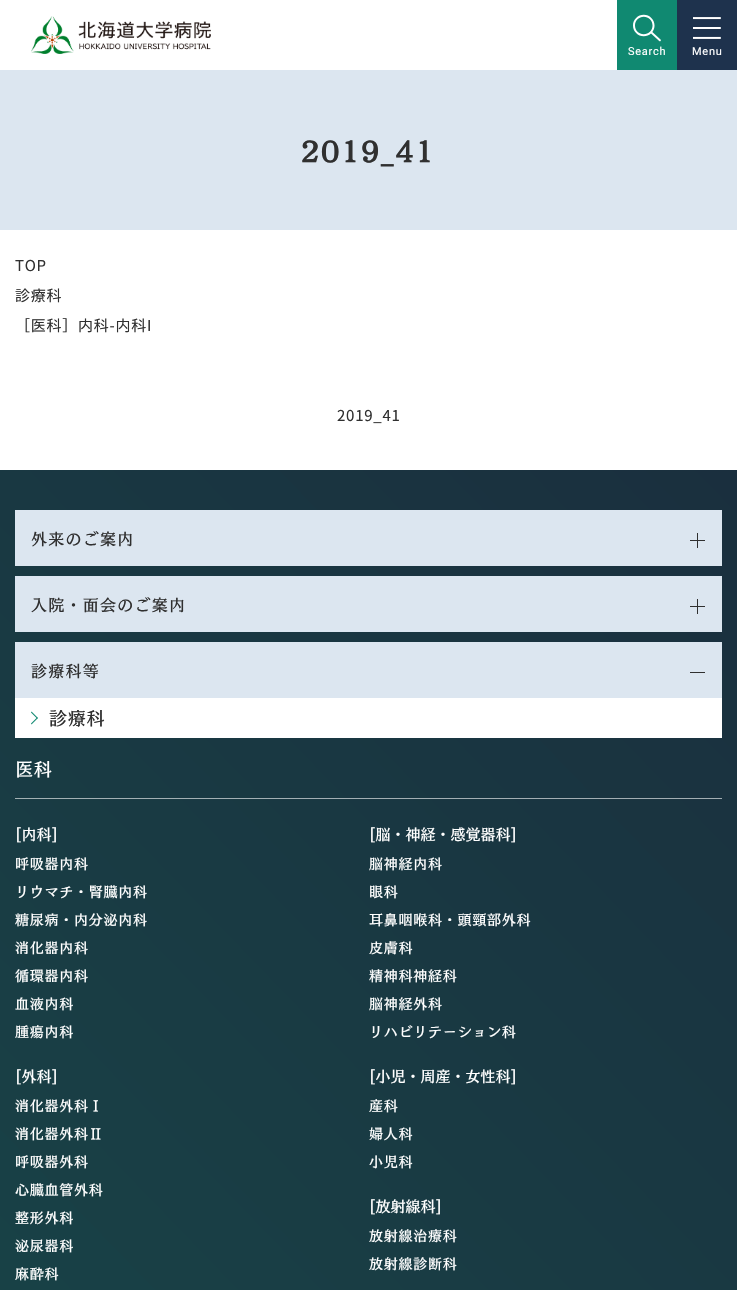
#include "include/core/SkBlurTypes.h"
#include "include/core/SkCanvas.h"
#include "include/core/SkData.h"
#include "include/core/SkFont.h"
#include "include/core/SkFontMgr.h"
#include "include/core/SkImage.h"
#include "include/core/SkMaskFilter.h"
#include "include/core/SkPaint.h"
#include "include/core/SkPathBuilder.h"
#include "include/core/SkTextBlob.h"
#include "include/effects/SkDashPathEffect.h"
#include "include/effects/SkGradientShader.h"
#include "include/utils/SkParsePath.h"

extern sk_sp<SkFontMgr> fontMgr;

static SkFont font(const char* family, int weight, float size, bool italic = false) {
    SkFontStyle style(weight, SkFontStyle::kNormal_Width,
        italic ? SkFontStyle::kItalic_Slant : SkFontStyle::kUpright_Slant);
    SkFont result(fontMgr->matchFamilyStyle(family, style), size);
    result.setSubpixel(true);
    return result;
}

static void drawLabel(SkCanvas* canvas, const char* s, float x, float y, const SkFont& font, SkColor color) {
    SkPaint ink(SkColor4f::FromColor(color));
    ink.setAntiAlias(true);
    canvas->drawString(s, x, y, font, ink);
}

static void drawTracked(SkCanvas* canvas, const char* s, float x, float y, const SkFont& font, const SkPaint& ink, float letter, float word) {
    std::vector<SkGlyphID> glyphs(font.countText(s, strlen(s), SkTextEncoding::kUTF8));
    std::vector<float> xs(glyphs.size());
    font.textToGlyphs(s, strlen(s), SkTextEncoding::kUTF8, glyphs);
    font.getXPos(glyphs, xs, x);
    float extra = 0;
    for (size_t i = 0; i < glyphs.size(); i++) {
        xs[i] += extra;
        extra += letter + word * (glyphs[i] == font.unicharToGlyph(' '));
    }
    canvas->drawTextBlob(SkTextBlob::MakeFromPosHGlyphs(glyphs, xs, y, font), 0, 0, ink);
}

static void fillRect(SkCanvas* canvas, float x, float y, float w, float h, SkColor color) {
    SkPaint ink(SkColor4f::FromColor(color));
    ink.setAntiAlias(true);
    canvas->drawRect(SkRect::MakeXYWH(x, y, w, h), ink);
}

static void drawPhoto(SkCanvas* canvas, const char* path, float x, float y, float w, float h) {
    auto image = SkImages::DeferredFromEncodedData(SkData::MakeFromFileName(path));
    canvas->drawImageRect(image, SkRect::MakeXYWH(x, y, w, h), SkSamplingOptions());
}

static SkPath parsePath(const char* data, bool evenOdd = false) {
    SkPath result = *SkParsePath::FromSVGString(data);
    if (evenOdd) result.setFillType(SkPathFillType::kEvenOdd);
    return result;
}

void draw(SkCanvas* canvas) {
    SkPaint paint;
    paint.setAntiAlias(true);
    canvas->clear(0xFFFFFFFF);
    drawPhoto(canvas, "assets/img1.png", 31, 16, 180, 38);
    fillRect(canvas, 617, 0, 60, 70, 0xFF108971);
    drawPhoto(canvas, "assets/img2.png", 633, 14, 28, 28);
    SkFont font1 = font("Roboto", 400, 11);
    paint.setColor(0xFFFFFFFF);
    drawTracked(canvas, "Search", 628, 55, font1, paint, 0.75f, 0);
    fillRect(canvas, 677, 0, 60, 70, 0xFF1E324D);
    drawPhoto(canvas, "assets/img3.png", 693, 17, 28, 22);
    drawTracked(canvas, "Menu", 692, 55, font1, paint, 0.75f, 0);
    fillRect(canvas, 0, 70, 737, 160, 0xFFDCE6F0);
    SkFont font2 = font("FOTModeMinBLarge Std", 700, 26);
    paint.setColor(0xFF303030);
    drawTracked(canvas, "2019_41", 301, 161, font2, paint, 1.5f, 0);
    SkFont font3 = font("Noto Sans JP", 400, 15);
    drawTracked(canvas, "TOP", 15, 271, font3, paint, 0.75f, 0);
    drawTracked(canvas, "診療科", 15, 301, font3, paint, 0.75f, 0);
    drawTracked(canvas, "［医科］内科-内科I", 15, 331, font3, paint, 0.75f, 0);
    drawTracked(canvas, "2019_41", 337, 421, font3, paint, 0.75f, 0);
    {
        const SkColor colors[] = {0xFF1A2F3E, 0xFF165B52};
        const float stops[] = {0, 1};
        const SkPoint ends[] = {{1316, 1070}, {-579, 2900}};
        paint.setShader(SkGradientShader::MakeLinear(ends, colors, stops, 2, SkTileMode::kClamp));
        paint.setAlpha(255);
    }
    canvas->drawRect(SkRect::MakeXYWH(0, 470, 737, 820), paint);
    {
        const SkColor colors[] = {0xFFA3ACB2, 0xFFA2BDBA};
        const float stops[] = {0, 1};
        const SkPoint ends[] = {{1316, 1070}, {-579, 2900}};
        paint.setShader(SkGradientShader::MakeLinear(ends, colors, stops, 2, SkTileMode::kClamp));
        paint.setAlpha(255);
    }
    canvas->drawRect(SkRect::MakeXYWH(15, 798, 707, 1), paint);
    fillRect(canvas, 15, 510, 707, 56, 0xFFDCE6F0);
    SkFont font4 = font("FOTModeMinBLarge Std", 500, 16);
    paint.setShader(nullptr);
    paint.setColor(0xFF303030);
    drawTracked(canvas, "外来のご案内", 31, 545, font4, paint, 1.25f, 0);
    fillRect(canvas, 690, 540, 15, 1, 0xFF303030);
    fillRect(canvas, 697, 533, 1, 15, 0xFF303030);
    fillRect(canvas, 15, 576, 707, 56, 0xFFDCE6F0);
    drawTracked(canvas, "入院・面会のご案内", 31, 611, font4, paint, 1.25f, 0);
    fillRect(canvas, 690, 606, 15, 1, 0xFF303030);
    fillRect(canvas, 697, 599, 1, 15, 0xFF303030);
    fillRect(canvas, 15, 642, 707, 56, 0xFFDCE6F0);
    drawTracked(canvas, "診療科等", 31, 677, font4, paint, 1.25f, 0);
    fillRect(canvas, 690, 672, 15, 1, 0xFF303030);
    fillRect(canvas, 15, 698, 707, 40, 0xFFFFFFFF);
    paint.setColor(0xFF108971);
    canvas->drawPath(parsePath("M31.5 711.5L38 718L37 718.5L31 712.5Z"), paint);
    canvas->drawPath(parsePath("M37 717.5L38 718L31.5 724.5L31 723.5Z"), paint);
    SkFont font5 = font("FOTModeMinBLarge Std", 500, 18);
    paint.setColor(0xFF303030);
    drawTracked(canvas, "診療科", 49, 725, font5, paint, 0.75f, 0);
    paint.setColor(0xFFFFFFFF);
    drawTracked(canvas, "医科", 15, 776, font5, paint, 0.75f, 0);
    SkFont font6 = font("FOTModeMinBLarge Std", 500, 15);
    drawLabel(canvas, "[内科]", 15, 840, font6, 0xFFFFFFFF);
    SkFont font7 = font("FOTModeMinBLarge Std", 500, 14);
    drawTracked(canvas, "呼吸器内科", 15, 869, font7, paint, 0.75f, 0);
    drawTracked(canvas, "リウマチ・腎臓内科", 15, 897, font7, paint, 0.75f, 0);
    drawTracked(canvas, "糖尿病・内分泌内科", 15, 925, font7, paint, 0.75f, 0);
    drawTracked(canvas, "消化器内科", 15, 953, font7, paint, 0.75f, 0);
    drawTracked(canvas, "循環器内科", 15, 981, font7, paint, 0.75f, 0);
    drawTracked(canvas, "血液内科", 15, 1009, font7, paint, 0.75f, 0);
    drawTracked(canvas, "腫瘍内科", 15, 1037, font7, paint, 0.75f, 0);
    drawLabel(canvas, "[外科]", 15, 1082, font6, 0xFFFFFFFF);
    drawTracked(canvas, "消化器外科Ⅰ", 15, 1111, font7, paint, 0.75f, 0);
    drawTracked(canvas, "消化器外科Ⅱ", 15, 1139, font7, paint, 0.75f, 0);
    drawTracked(canvas, "呼吸器外科", 15, 1167, font7, paint, 0.75f, 0);
    drawTracked(canvas, "心臓血管外科", 15, 1195, font7, paint, 0.75f, 0);
    drawTracked(canvas, "整形外科", 15, 1223, font7, paint, 0.75f, 0);
    drawTracked(canvas, "泌尿器科", 15, 1251, font7, paint, 0.75f, 0);
    drawTracked(canvas, "麻酔科", 15, 1279, font7, paint, 0.75f, 0);
    drawLabel(canvas, "[脳・神経・感覚器科]", 369, 840, font6, 0xFFFFFFFF);
    drawTracked(canvas, "脳神経内科", 369, 869, font7, paint, 0.75f, 0);
    drawTracked(canvas, "眼科", 369, 897, font7, paint, 0.75f, 0);
    drawTracked(canvas, "耳鼻咽喉科・頭頸部外科", 369, 925, font7, paint, 0.75f, 0);
    drawTracked(canvas, "皮膚科", 369, 953, font7, paint, 0.75f, 0);
    drawTracked(canvas, "精神科神経科", 369, 981, font7, paint, 0.75f, 0);
    drawTracked(canvas, "脳神経外科", 369, 1009, font7, paint, 0.75f, 0);
    drawTracked(canvas, "リハビリテーション科", 369, 1037, font7, paint, 0.75f, 0);
    drawLabel(canvas, "[小児・周産・女性科]", 369, 1082, font6, 0xFFFFFFFF);
    drawTracked(canvas, "産科", 369, 1111, font7, paint, 0.75f, 0);
    drawTracked(canvas, "婦人科", 369, 1139, font7, paint, 0.75f, 0);
    drawTracked(canvas, "小児科", 369, 1167, font7, paint, 0.75f, 0);
    drawLabel(canvas, "[放射線科]", 369, 1212, font6, 0xFFFFFFFF);
    drawTracked(canvas, "放射線治療科", 369, 1241, font7, paint, 0.75f, 0);
    drawTracked(canvas, "放射線診断科", 369, 1269, font7, paint, 0.75f, 0);
}
